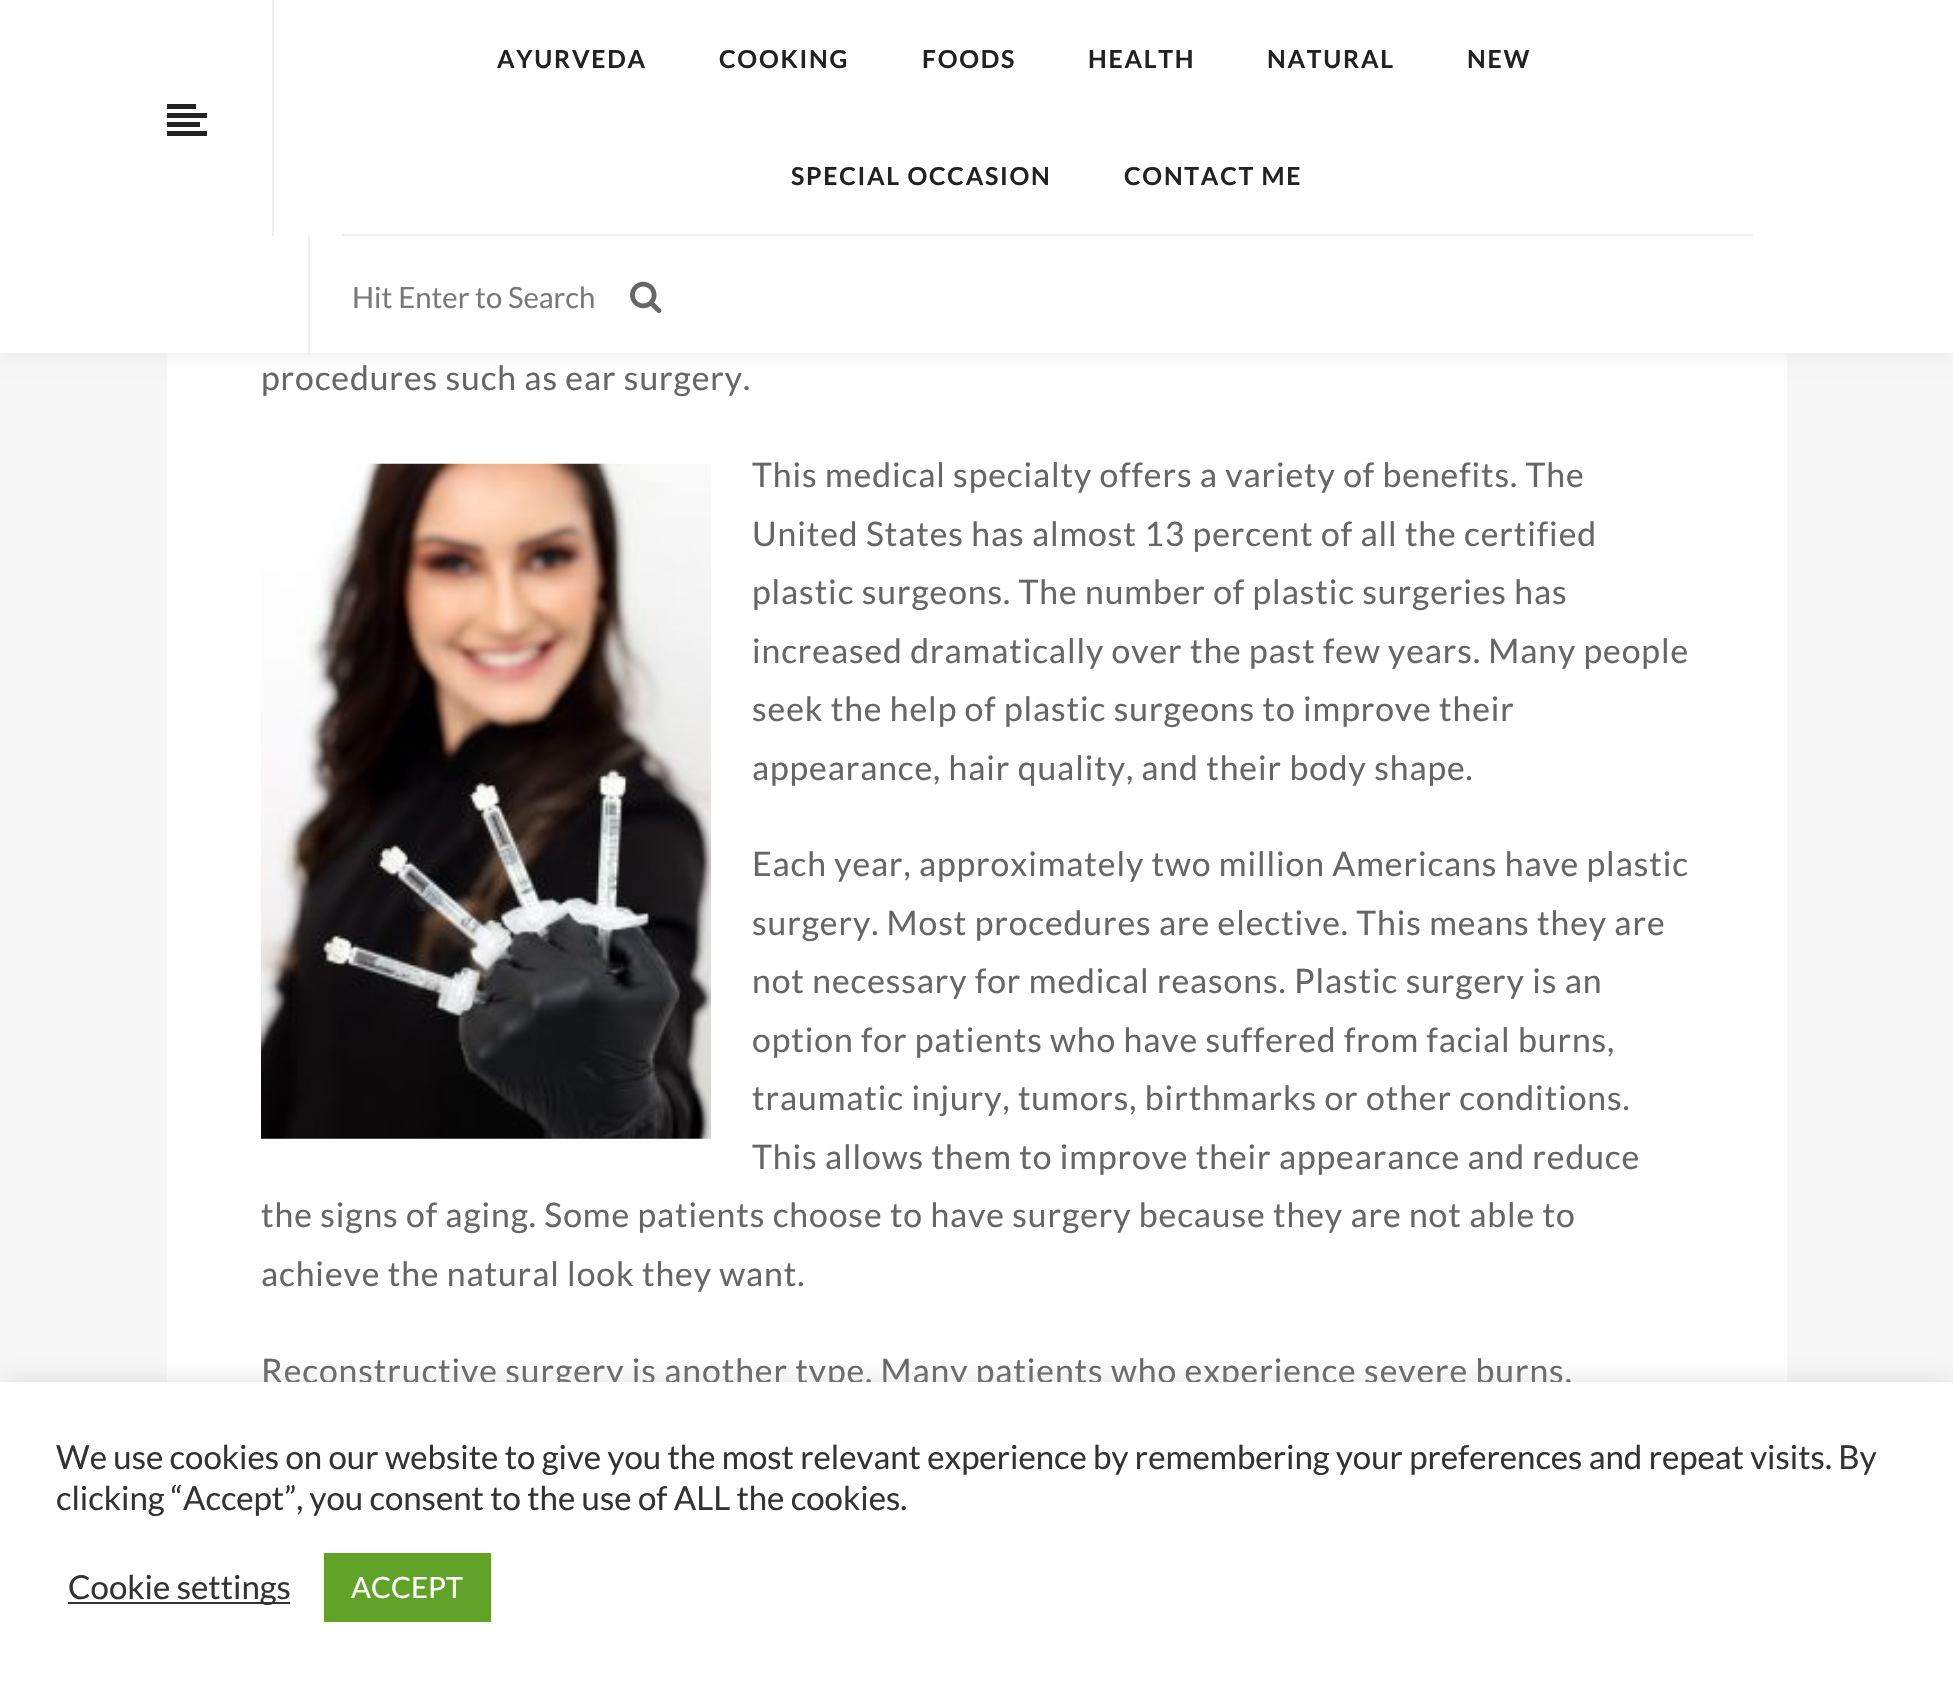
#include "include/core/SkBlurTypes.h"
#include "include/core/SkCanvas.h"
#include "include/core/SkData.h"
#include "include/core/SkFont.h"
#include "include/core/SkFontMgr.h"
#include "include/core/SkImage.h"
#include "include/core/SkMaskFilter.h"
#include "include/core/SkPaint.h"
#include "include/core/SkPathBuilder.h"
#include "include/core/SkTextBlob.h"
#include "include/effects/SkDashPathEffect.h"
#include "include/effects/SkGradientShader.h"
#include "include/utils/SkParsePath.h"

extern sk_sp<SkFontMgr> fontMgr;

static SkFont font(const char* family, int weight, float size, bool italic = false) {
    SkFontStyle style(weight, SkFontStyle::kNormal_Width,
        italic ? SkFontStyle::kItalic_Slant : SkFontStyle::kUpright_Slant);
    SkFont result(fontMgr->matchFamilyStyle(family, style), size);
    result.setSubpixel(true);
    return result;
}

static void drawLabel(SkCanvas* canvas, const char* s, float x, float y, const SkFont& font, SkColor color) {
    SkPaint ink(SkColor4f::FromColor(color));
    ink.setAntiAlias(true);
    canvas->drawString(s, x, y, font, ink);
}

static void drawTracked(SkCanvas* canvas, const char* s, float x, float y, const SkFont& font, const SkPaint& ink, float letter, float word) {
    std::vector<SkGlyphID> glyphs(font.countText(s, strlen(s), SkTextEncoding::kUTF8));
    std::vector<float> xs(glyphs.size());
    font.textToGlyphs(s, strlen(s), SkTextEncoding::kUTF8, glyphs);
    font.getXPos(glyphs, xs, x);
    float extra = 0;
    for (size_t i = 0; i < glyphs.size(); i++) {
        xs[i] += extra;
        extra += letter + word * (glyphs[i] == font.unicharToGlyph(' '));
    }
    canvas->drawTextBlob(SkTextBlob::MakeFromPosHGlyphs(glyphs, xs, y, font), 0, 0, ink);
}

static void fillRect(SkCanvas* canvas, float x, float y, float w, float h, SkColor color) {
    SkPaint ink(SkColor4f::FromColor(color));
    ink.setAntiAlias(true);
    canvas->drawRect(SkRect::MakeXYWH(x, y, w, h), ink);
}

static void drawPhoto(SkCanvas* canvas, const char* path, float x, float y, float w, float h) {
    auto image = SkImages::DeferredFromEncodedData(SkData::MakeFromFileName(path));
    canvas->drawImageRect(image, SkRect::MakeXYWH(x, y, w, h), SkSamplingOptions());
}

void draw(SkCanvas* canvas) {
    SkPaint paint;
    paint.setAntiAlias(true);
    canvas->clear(0xFFF7F7F7);
    fillRect(canvas, 167, 353, 1620, 1029, 0xFFFFFFFF);
    paint.setColor(0xFFE6E6E6);
    paint.setMaskFilter(SkMaskFilter::MakeBlur(kNormal_SkBlurStyle, 9));
    canvas->drawRect(SkRect::MakeXYWH(0, 0, 1953, 353), paint);
    paint.setMaskFilter(nullptr);
    fillRect(canvas, 0, 0, 1953, 353, 0xFFFFFFFF);
    fillRect(canvas, 272, 0, 2, 236, 0xFFEEEEEE);
    fillRect(canvas, 167, 104, 29, 5, 0xFF222222);
    fillRect(canvas, 167, 113, 40, 5, 0xFF222222);
    fillRect(canvas, 167, 122, 33, 5, 0xFF222222);
    fillRect(canvas, 167, 131, 40, 5, 0xFF222222);
    fillRect(canvas, 342, 234, 1411, 2, 0xFFEEEEEE);
    SkFont font1 = font("Lato", 700, 24.75f);
    paint.setColor(0xFF222222);
    drawTracked(canvas, "AYURVEDA", 497, 68, font1, paint, 1.75f, 0);
    drawTracked(canvas, "COOKING", 719, 68, font1, paint, 1.75f, 0);
    drawTracked(canvas, "FOODS", 922, 68, font1, paint, 1.75f, 0);
    drawTracked(canvas, "HEALTH", 1088, 68, font1, paint, 1.75f, 0);
    drawTracked(canvas, "NATURAL", 1267, 68, font1, paint, 1.75f, 0);
    drawTracked(canvas, "NEW", 1467, 68, font1, paint, 1.75f, 0);
    drawTracked(canvas, "SPECIAL OCCASION", 791, 185, font1, paint, 1.75f, 0);
    drawTracked(canvas, "CONTACT ME", 1124, 185, font1, paint, 1.75f, 0);
    fillRect(canvas, 308, 236, 2, 117, 0xFFEEEEEE);
    SkFont font2 = font("Lato", 400, 29.25f);
    drawLabel(canvas, "Hit Enter to Search", 352, 308, font2, 0xFF797979);
    drawPhoto(canvas, "assets/img1.png", 630, 281, 32, 32);
    SkFont font3 = font("Lato", 400, 33.75f);
    paint.setColor(0xFF666666);
    drawTracked(canvas, "procedures such as ear surgery.", 261, 390, font3, paint, 0.9f, 0);
    drawPhoto(canvas, "assets/img2.png", 261, 463, 450, 676);
    drawTracked(canvas, "This medical specialty offers a variety of benefits. The", 752, 487, font3, paint, 0.9f, 0);
    drawTracked(canvas, "United States has almost 13 percent of all the certified", 752, 546, font3, paint, 0.9f, 0);
    drawTracked(canvas, "plastic surgeons. The number of plastic surgeries has", 752, 604, font3, paint, 0.9f, 0);
    drawTracked(canvas, "increased dramatically over the past few years. Many people", 752, 663, font3, paint, 0.9f, 0);
    drawTracked(canvas, "seek the help of plastic surgeons to improve their", 752, 721, font3, paint, 0.9f, 0);
    drawTracked(canvas, "appearance, hair quality, and their body shape.", 752, 780, font3, paint, 0.9f, 0);
    drawTracked(canvas, "Each year, approximately two million Americans have plastic", 752, 876, font3, paint, 0.9f, 0);
    drawTracked(canvas, "surgery. Most procedures are elective. This means they are", 752, 935, font3, paint, 0.9f, 0);
    drawTracked(canvas, "not necessary for medical reasons. Plastic surgery is an", 752, 993, font3, paint, 0.9f, 0);
    drawTracked(canvas, "option for patients who have suffered from facial burns,", 752, 1052, font3, paint, 0.9f, 0);
    drawTracked(canvas, "traumatic injury, tumors, birthmarks or other conditions.", 752, 1110, font3, paint, 0.9f, 0);
    drawTracked(canvas, "This allows them to improve their appearance and reduce", 752, 1169, font3, paint, 0.9f, 0);
    drawTracked(canvas, "the signs of aging. Some patients choose to have surgery because they are not able to", 261, 1227, font3, paint, 0.9f, 0);
    drawTracked(canvas, "achieve the natural look they want.", 261, 1286, font3, paint, 0.9f, 0);
    drawTracked(canvas, "Reconstructive surgery is another type. Many patients who experience severe burns,", 261, 1383, font3, paint, 0.9f, 0);
    paint.setColor(0x4DACABAB);
    paint.setMaskFilter(SkMaskFilter::MakeBlur(kNormal_SkBlurStyle, 11));
    canvas->drawRect(SkRect::MakeXYWH(0, 1379, 1953, 309), paint);
    paint.setMaskFilter(nullptr);
    fillRect(canvas, 0, 1382, 1953, 307, 0xFFFFFFFF);
    SkFont font4 = font("Lato", 400, 33);
    drawLabel(canvas, "We use cookies on our website to give you the most relevant experience by remembering your preferences and repeat visits. By", 56, 1469, font4, 0xFF333333);
    drawLabel(canvas, "clicking “Accept”, you consent to the use of ALL the cookies.", 56, 1510, font4, 0xFF333333);
    fillRect(canvas, 68, 1602, 222, 2, 0xFF333333);
    drawLabel(canvas, "Cookie settings", 68, 1599, font4, 0xFF333333);
    fillRect(canvas, 324, 1553, 167, 69, 0xFF61A229);
    drawLabel(canvas, "ACCEPT", 351, 1598, font2, 0xFFFFFFFF);
}
